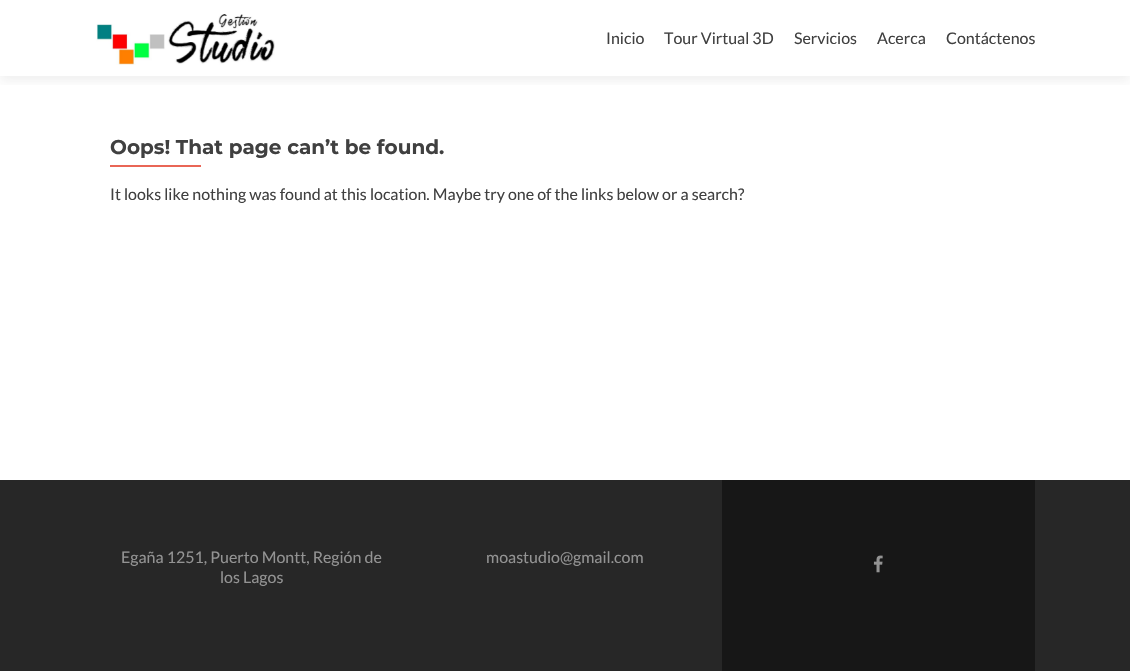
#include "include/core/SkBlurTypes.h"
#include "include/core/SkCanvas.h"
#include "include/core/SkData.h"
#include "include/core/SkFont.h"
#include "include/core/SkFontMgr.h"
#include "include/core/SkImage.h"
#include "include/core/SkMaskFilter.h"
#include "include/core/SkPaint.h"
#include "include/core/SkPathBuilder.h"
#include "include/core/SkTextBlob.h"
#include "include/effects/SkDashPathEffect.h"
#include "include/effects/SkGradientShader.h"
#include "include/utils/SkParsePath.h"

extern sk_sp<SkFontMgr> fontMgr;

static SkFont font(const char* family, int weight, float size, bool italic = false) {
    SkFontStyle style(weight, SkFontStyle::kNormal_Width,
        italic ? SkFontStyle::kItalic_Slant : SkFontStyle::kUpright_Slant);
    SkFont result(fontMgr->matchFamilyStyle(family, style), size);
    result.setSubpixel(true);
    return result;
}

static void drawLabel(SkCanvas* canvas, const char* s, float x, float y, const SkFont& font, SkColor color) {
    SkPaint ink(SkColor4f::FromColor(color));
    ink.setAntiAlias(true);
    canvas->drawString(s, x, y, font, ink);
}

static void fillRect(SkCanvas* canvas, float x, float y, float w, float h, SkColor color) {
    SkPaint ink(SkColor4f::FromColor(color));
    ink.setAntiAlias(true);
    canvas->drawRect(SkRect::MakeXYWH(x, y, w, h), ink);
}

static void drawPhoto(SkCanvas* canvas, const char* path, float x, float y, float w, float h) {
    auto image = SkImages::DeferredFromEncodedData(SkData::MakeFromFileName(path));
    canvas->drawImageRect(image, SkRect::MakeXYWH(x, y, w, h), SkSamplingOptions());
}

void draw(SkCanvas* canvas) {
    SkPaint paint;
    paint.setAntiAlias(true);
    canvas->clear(0xFFFFFFFF);
    canvas->save();
    canvas->clipRect(SkRect::MakeXYWH(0, 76, 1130, 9));
    paint.setColor(0x14323232);
    paint.setMaskFilter(SkMaskFilter::MakeBlur(kNormal_SkBlurStyle, 5.5f));
    canvas->drawRect(SkRect::MakeXYWH(0, 5, 1130, 76), paint);
    paint.setMaskFilter(nullptr);
    canvas->restore();
    drawPhoto(canvas, "assets/img1.png", 96, 14, 179, 51);
    SkFont font1 = font("Lato", 400, 16);
    drawLabel(canvas, "Inicio", 606, 44, font1, 0xFF404040);
    drawLabel(canvas, "Tour Virtual 3D", 664, 44, font1, 0xFF404040);
    drawLabel(canvas, "Servicios", 794, 44, font1, 0xFF404040);
    drawLabel(canvas, "Acerca", 877, 44, font1, 0xFF404040);
    drawLabel(canvas, "Contáctenos", 946, 44, font1, 0xFF404040);
    SkFont font2 = font("Montserrat", 700, 20);
    drawLabel(canvas, "Oops! That page can’t be found.", 110, 154, font2, 0xFF404040);
    fillRect(canvas, 110, 165, 91, 2, 0xFFE96656);
    drawLabel(canvas, "It looks like nothing was found at this location. Maybe try one of the links below or a search?", 110, 200, font1, 0xFF404040);
    fillRect(canvas, 0, 480, 1130, 191, 0xFF272727);
    drawLabel(canvas, "Egaña 1251, Puerto Montt, Región de", 121, 563, font1, 0xFF939393);
    drawLabel(canvas, "los Lagos", 220, 583, font1, 0xFF939393);
    drawLabel(canvas, "moastudio@gmail.com", 486, 563, font1, 0xFF939393);
    fillRect(canvas, 722, 480, 313, 191, 0xFF171717);
    drawPhoto(canvas, "assets/img2.png", 873, 555, 10, 18);
}
